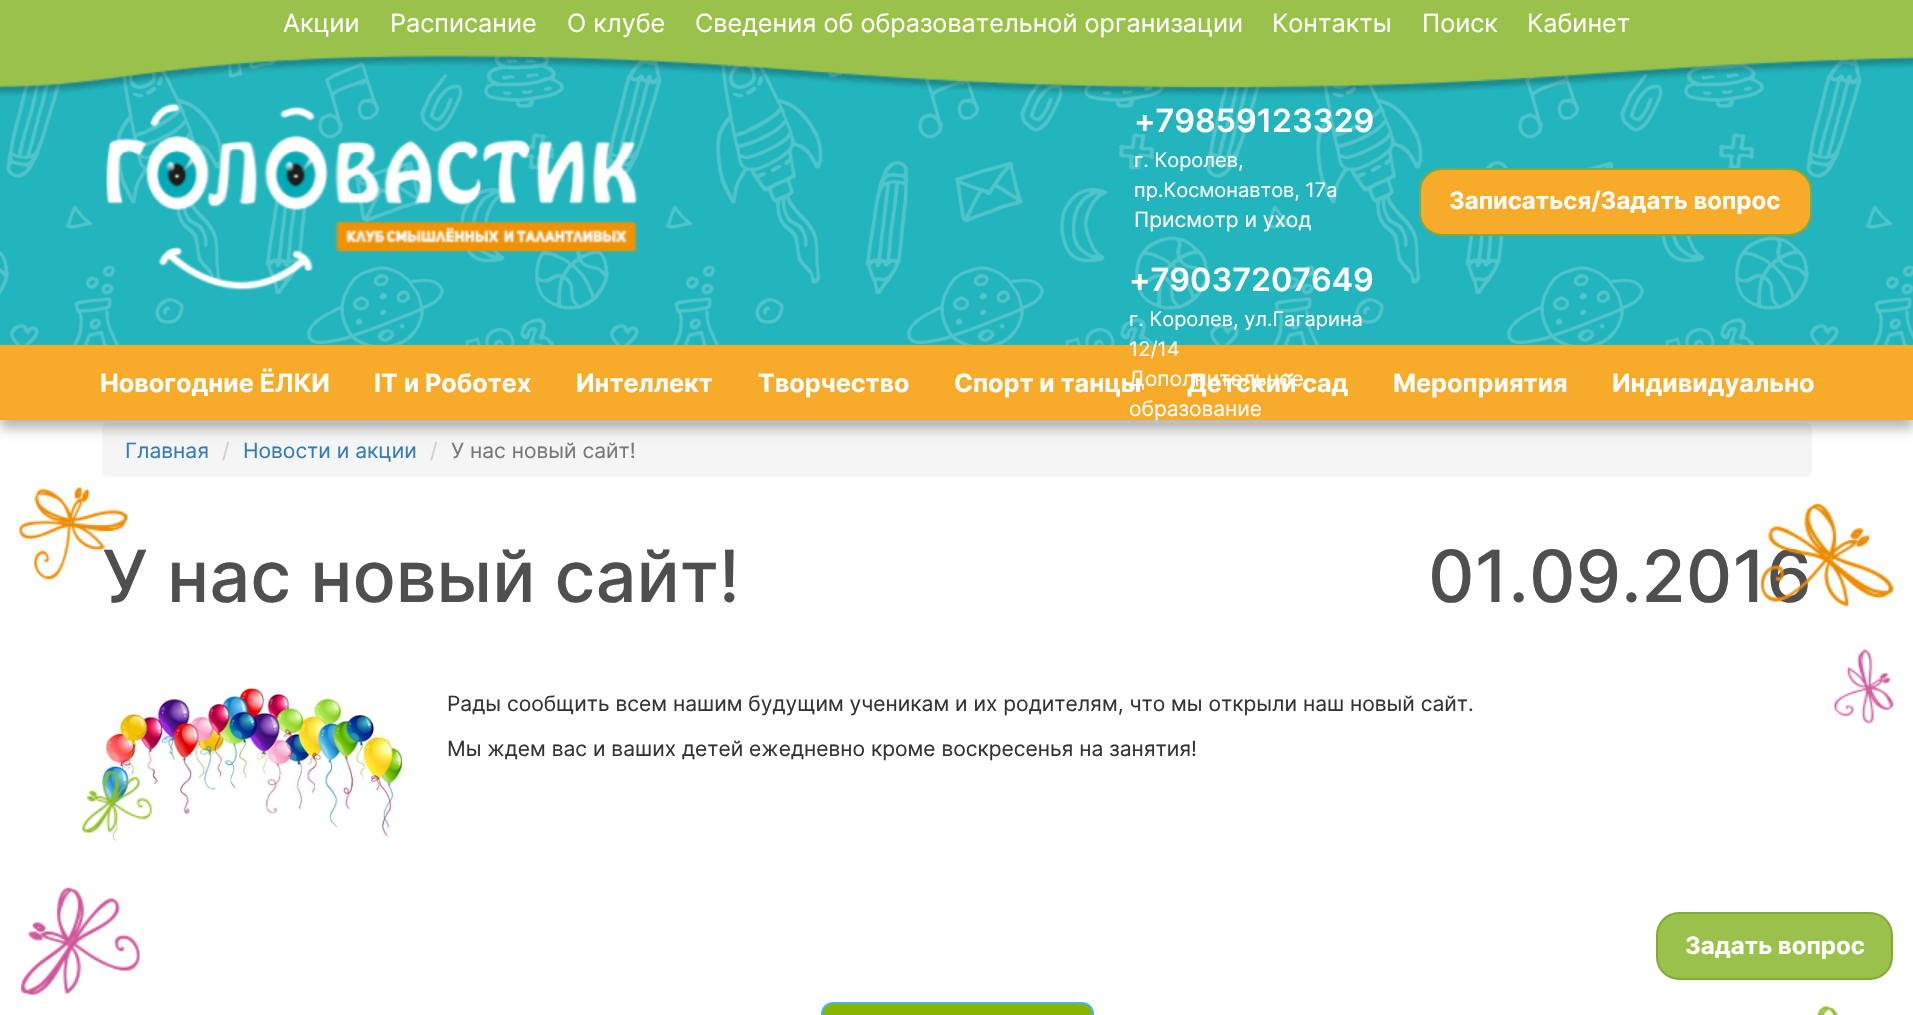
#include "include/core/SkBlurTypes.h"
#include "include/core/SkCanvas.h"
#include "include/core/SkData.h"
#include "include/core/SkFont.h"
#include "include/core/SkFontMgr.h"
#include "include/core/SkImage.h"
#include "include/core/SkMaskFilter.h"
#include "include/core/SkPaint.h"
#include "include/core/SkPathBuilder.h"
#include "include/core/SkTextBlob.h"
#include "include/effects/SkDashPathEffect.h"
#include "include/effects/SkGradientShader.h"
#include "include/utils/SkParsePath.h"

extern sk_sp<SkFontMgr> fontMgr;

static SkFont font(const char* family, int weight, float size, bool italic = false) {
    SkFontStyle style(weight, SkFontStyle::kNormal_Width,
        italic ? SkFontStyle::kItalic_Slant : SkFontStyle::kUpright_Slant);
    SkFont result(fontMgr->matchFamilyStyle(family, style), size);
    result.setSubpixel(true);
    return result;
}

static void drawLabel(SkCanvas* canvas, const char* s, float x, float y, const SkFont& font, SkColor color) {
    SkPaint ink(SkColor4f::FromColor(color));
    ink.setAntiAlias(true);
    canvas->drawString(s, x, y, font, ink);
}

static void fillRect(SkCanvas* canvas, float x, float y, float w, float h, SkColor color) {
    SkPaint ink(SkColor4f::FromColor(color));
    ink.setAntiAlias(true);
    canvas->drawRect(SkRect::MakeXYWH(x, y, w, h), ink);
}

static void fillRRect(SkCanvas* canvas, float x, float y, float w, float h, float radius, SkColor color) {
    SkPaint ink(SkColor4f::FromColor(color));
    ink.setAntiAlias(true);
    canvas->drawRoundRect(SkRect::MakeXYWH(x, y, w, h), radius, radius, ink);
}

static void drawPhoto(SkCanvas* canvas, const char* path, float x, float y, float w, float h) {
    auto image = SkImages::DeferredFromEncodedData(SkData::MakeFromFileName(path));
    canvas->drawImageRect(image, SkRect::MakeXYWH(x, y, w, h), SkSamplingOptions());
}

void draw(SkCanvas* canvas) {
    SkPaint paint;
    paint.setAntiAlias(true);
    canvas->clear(0xFFFFFFFF);
    fillRRect(canvas, 102, 423, 1710, 54, 6, 0xFFF5F5F5);
    paint.setColor(0x4D000000);
    paint.setMaskFilter(SkMaskFilter::MakeBlur(kNormal_SkBlurStyle, 6));
    canvas->drawRect(SkRect::MakeXYWH(0, 278, 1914, 150), paint);
    paint.setMaskFilter(nullptr);
    fillRect(canvas, 0, 55, 1913, 290, 0xFF22B5BD);
    drawPhoto(canvas, "assets/img2.png", 0, 55, 1913, 290);
    drawPhoto(canvas, "assets/img1.png", 0, 0, 1913, 97);
    SkFont font1 = font("Inter", 400, 25.2f);
    drawLabel(canvas, "Акции", 283, 32, font1, 0xFFFFFFFF);
    drawLabel(canvas, "Расписание", 390, 32, font1, 0xFFFFFFFF);
    drawLabel(canvas, "О клубе", 567, 32, font1, 0xFFFFFFFF);
    drawLabel(canvas, "Сведения об образовательной организации", 695, 32, font1, 0xFFFFFFFF);
    drawLabel(canvas, "Контакты", 1272, 32, font1, 0xFFFFFFFF);
    drawLabel(canvas, "Поиск", 1422, 32, font1, 0xFFFFFFFF);
    drawLabel(canvas, "Кабинет", 1527, 32, font1, 0xFFFFFFFF);
    drawPhoto(canvas, "assets/img3.png", 106, 103, 532, 187);
    SkFont font2 = font("Inter", 600, 32);
    drawLabel(canvas, "+79859123329", 1134, 132, font2, 0xFFFFFFFF);
    SkFont font3 = font("Inter", 400, 20);
    drawLabel(canvas, "г. Королев,", 1134, 167, font3, 0xFFFFFFFF);
    drawLabel(canvas, "пр.Космонавтов, 17а", 1134, 197, font3, 0xFFFFFFFF);
    SkFont font4 = font("Inter", 400, 21);
    drawLabel(canvas, "Присмотр и уход", 1134, 227, font4, 0xFFFFFFFF);
    drawLabel(canvas, "+79037207649", 1129, 291, font2, 0xFFFFFFFF);
    drawLabel(canvas, "г. Королев, ул.Гагарина", 1129, 326, font3, 0xFFFFFFFF);
    fillRect(canvas, 0, 345, 1913, 75, 0xFFF7AB28);
    drawLabel(canvas, "12/14", 1129, 356, font3, 0xFFFFFFFF);
    SkFont font5 = font("Inter", 700, 25.2f);
    drawLabel(canvas, "Спорт и танцы", 954, 392, font5, 0xFFFFFFFF);
    drawLabel(canvas, "Детский сад", 1187, 392, font5, 0xFFFFFFFF);
    drawLabel(canvas, "Дополнительное", 1129, 386, font4, 0xFFFFFFFF);
    drawLabel(canvas, "образование", 1129, 416, font4, 0xFFFFFFFF);
    paint.setColor(0xFFF7AB28);
    canvas->drawRoundRect(SkRect::MakeXYWH(1420, 169, 391, 66), 22, 22, paint);
    paint.setStroke(true);
    paint.setStrokeWidth(2);
    paint.setColor(0xFF84A839);
    canvas->drawRoundRect(SkRect::MakeXYWH(1420, 169, 391, 66), 22, 22, paint);
    SkFont font6 = font("Inter", 700, 24);
    drawLabel(canvas, "Записаться/Задать вопрос", 1449, 209, font6, 0xFFFFFFFF);
    drawLabel(canvas, "Новогодние ЁЛКИ", 100, 392, font5, 0xFFFFFFFF);
    drawLabel(canvas, "IT и Роботех", 374, 392, font5, 0xFFFFFFFF);
    drawLabel(canvas, "Интеллект", 576, 392, font5, 0xFFFFFFFF);
    drawLabel(canvas, "Творчество", 758, 392, font5, 0xFFFFFFFF);
    drawLabel(canvas, "Мероприятия", 1393, 392, font5, 0xFFFFFFFF);
    drawLabel(canvas, "Индивидуально", 1612, 392, font5, 0xFFFFFFFF);
    SkFont font7 = font("Inter", 500, 72);
    drawLabel(canvas, "У нас новый сайт!", 102, 602, font7, 0xFF4F4F4F);
    drawPhoto(canvas, "assets/img4.png", 19, 487, 109, 93);
    drawLabel(canvas, "Главная", 125, 458, font4, 0xFF337AB7);
    drawLabel(canvas, "/", 222, 458, font4, 0xFFCCCCCC);
    drawLabel(canvas, "Новости и акции", 243, 458, font4, 0xFF337AB7);
    drawLabel(canvas, "/", 430, 458, font4, 0xFFCCCCCC);
    drawLabel(canvas, "У нас новый сайт!", 451, 458, font4, 0xFF777777);
    drawLabel(canvas, "01.09.2016", 1428, 602, font7, 0xFF4F4F4F);
    drawPhoto(canvas, "assets/img5.png", 102, 688, 300, 153);
    drawLabel(canvas, "Рады сообщить всем нашим будущим ученикам и их родителям, что мы открыли наш новый сайт.", 447, 711, font4, 0xFF333333);
    drawLabel(canvas, "Мы ждем вас и ваших детей ежедневно кроме воскресенья на занятия!", 447, 756, font4, 0xFF333333);
    paint.setStroke(false);
    paint.setColor(0xFF87B500);
    canvas->drawRoundRect(SkRect::MakeXYWH(822, 1003, 271, 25), 11, 11, paint);
    paint.setStroke(true);
    paint.setColor(0xFF46B8DA);
    canvas->drawRoundRect(SkRect::MakeXYWH(822, 1003, 271, 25), 11, 11, paint);
    drawPhoto(canvas, "assets/img6.png", 1760, 503, 134, 104);
    drawPhoto(canvas, "assets/img7.png", 1833, 649, 61, 75);
    drawPhoto(canvas, "assets/img8.png", 82, 770, 70, 63);
    drawPhoto(canvas, "assets/img9.png", 20, 887, 120, 108);
    paint.setStroke(false);
    paint.setColor(0xFF9AC149);
    canvas->drawRoundRect(SkRect::MakeXYWH(1657, 913, 235, 66), 22, 22, paint);
    paint.setStroke(true);
    paint.setColor(0xFF84A839);
    canvas->drawRoundRect(SkRect::MakeXYWH(1657, 913, 235, 66), 22, 22, paint);
    drawLabel(canvas, "Задать вопрос", 1685, 954, font6, 0xFFFFFFFF);
    drawPhoto(canvas, "assets/img10.png", 1816, 1006, 22, 9);
}
